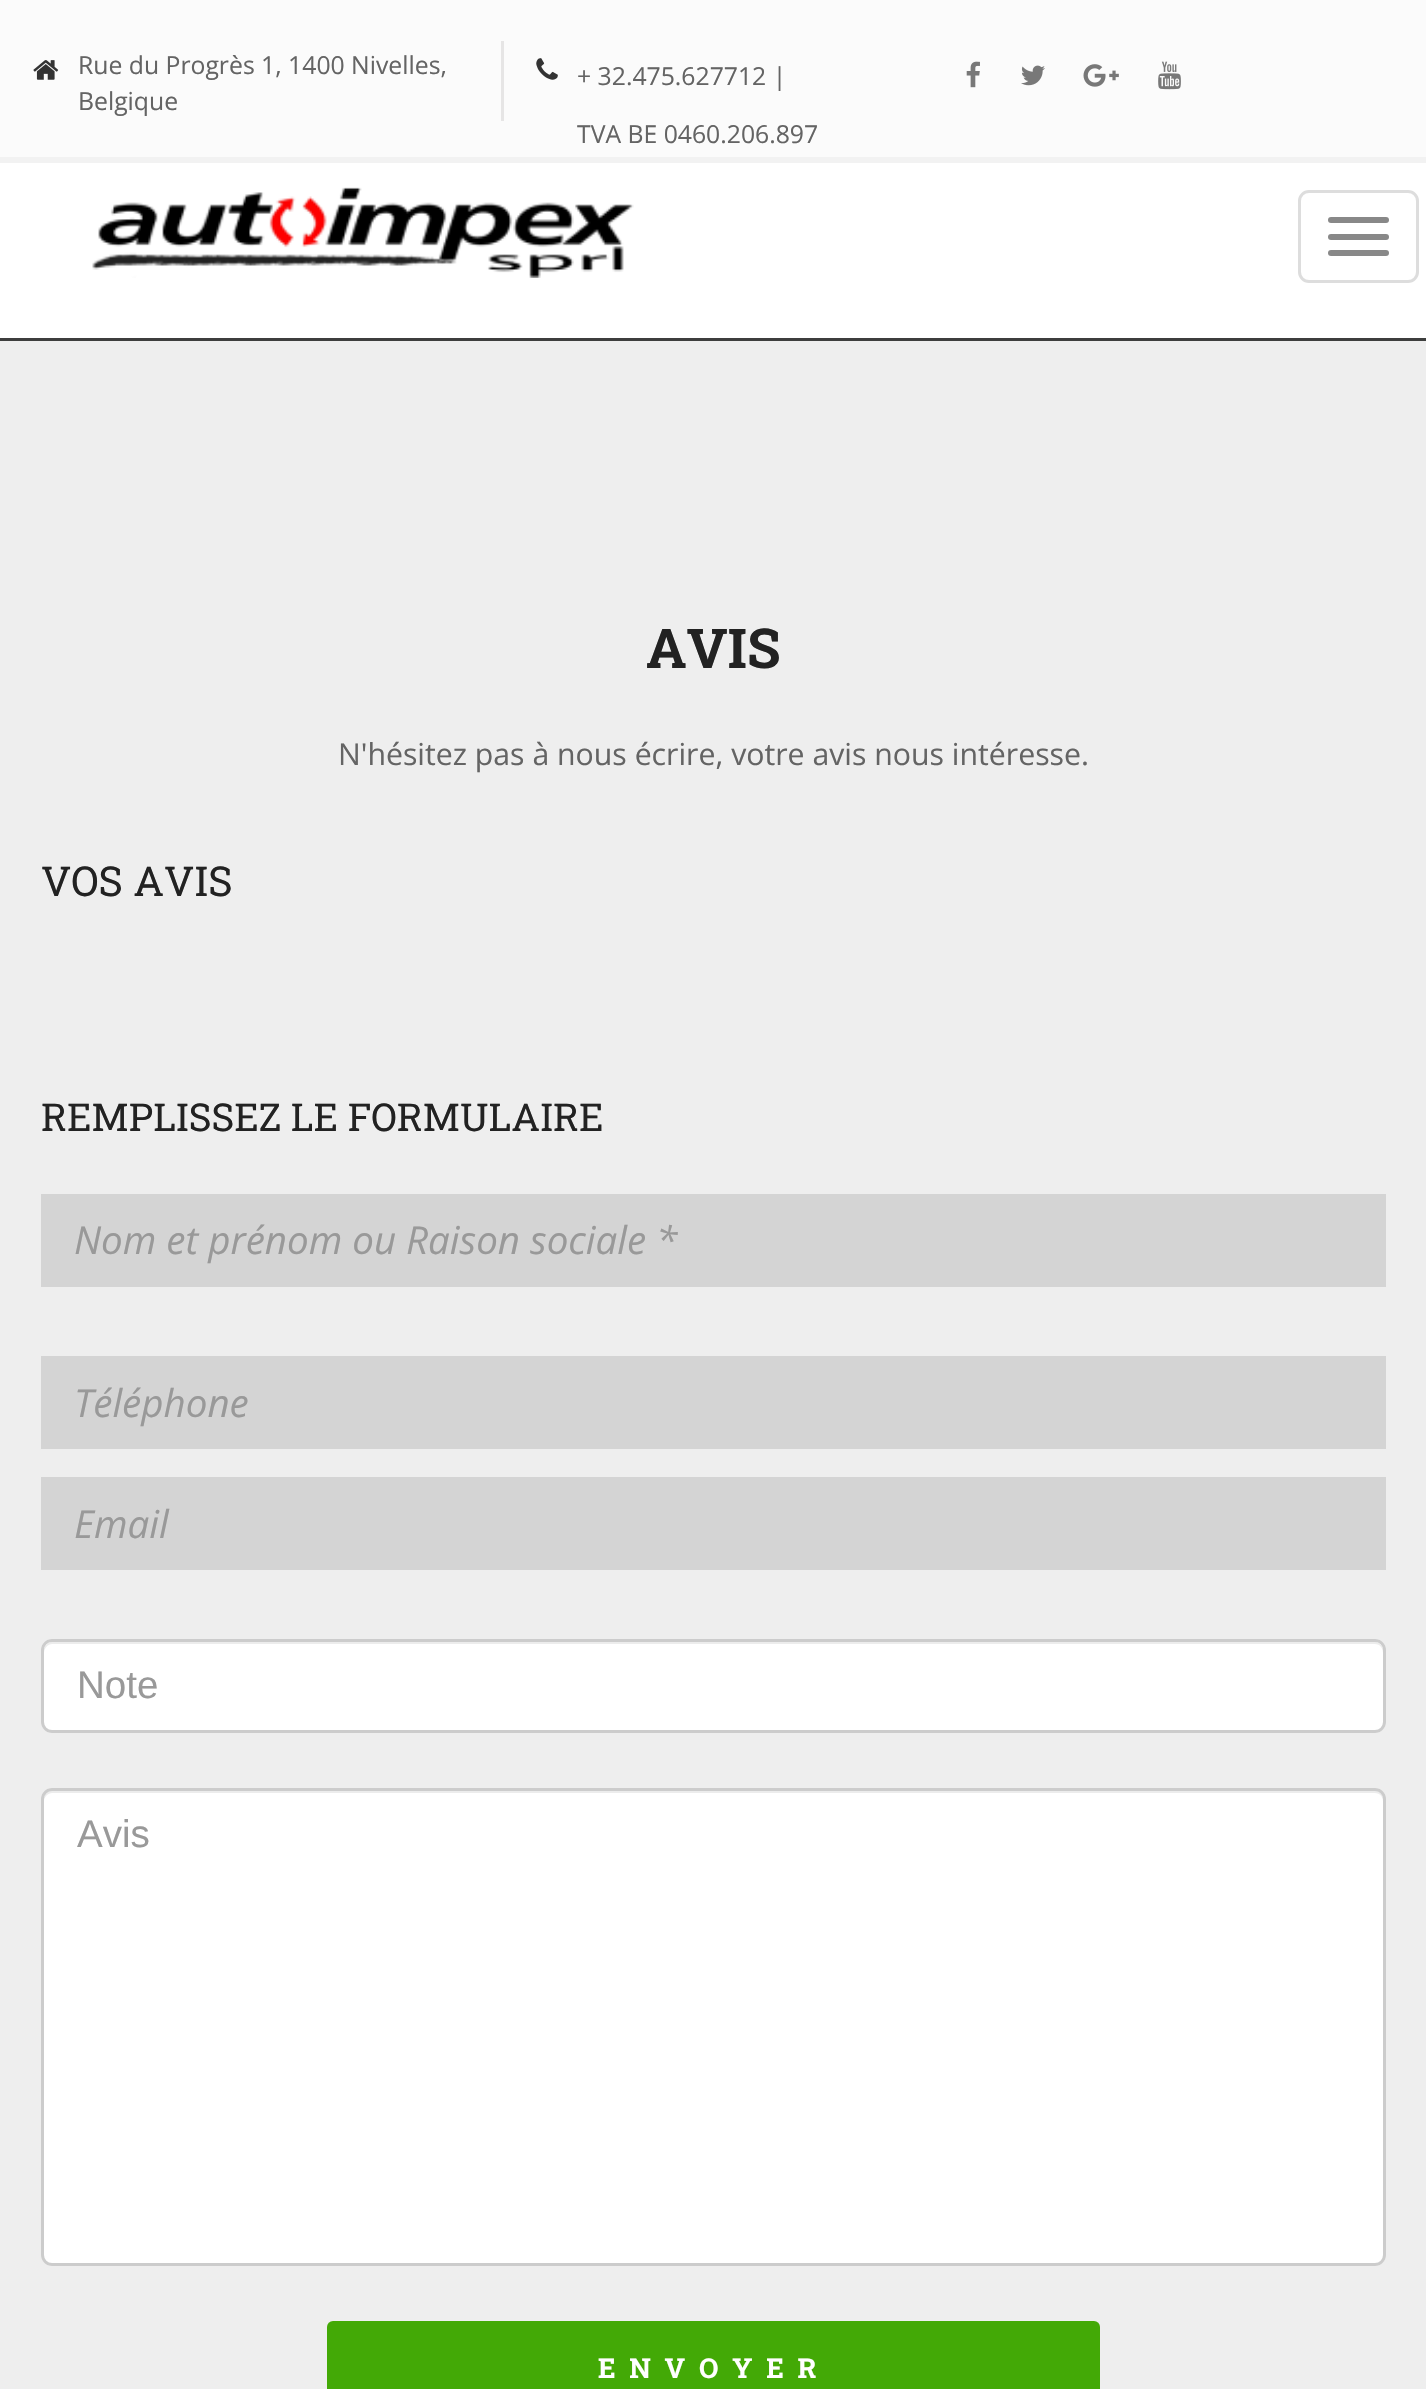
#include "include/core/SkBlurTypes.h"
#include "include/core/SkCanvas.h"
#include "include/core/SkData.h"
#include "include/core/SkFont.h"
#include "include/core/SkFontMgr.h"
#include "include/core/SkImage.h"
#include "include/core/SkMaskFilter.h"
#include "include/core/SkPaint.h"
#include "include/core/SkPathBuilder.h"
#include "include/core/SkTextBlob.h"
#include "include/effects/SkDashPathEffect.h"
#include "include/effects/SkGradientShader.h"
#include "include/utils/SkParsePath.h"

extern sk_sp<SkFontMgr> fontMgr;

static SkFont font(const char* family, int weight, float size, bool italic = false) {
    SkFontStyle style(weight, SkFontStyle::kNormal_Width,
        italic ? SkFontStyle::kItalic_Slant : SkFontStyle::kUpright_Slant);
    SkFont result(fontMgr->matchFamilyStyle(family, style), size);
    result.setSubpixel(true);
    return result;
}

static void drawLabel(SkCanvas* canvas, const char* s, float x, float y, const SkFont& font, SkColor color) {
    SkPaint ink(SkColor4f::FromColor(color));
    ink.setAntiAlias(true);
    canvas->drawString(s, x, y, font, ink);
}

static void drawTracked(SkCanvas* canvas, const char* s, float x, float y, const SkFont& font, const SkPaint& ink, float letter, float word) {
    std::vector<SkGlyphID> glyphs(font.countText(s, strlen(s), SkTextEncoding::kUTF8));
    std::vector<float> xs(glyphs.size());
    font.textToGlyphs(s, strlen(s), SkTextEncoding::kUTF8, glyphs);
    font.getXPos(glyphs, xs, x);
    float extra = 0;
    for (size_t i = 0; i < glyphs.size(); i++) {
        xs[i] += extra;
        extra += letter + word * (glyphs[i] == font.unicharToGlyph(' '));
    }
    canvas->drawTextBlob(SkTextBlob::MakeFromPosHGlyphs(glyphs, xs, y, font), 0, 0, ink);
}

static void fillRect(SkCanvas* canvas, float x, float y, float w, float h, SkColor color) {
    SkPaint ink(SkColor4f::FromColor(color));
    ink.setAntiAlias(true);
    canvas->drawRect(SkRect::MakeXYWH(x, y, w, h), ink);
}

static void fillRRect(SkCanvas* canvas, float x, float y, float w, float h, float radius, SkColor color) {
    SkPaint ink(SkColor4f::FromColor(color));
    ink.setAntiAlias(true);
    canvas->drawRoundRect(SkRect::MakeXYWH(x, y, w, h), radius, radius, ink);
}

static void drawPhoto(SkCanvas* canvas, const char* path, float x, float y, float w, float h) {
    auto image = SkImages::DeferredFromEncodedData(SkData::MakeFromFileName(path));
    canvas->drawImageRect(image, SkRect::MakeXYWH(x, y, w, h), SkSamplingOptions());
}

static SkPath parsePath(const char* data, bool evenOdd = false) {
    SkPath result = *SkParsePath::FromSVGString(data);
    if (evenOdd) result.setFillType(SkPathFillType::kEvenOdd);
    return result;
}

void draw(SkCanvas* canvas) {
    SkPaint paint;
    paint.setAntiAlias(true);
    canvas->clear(0xFFFFFFFF);
    fillRect(canvas, 0, 0, 1426, 157, 0xFFFBFBFB);
    fillRect(canvas, 0, 157, 1426, 6, 0xFFF2F2F2);
    fillRect(canvas, 501, 41, 3, 80, 0xFFE6E5E5);
    drawPhoto(canvas, "assets/img1.png", 33, 60, 26, 20);
    SkFont font1 = font("Open Sans", 400, 24.75f);
    drawLabel(canvas, "Rue du Progrès 1, 1400 Nivelles,", 78, 74, font1, 0xFF646464);
    drawLabel(canvas, "Belgique", 78, 110, font1, 0xFF646464);
    drawPhoto(canvas, "assets/img2.png", 536, 58, 22, 22);
    drawLabel(canvas, "+ 32.475.627712 |", 577, 85, font1, 0xFF646464);
    drawLabel(canvas, "TVA BE 0460.206.897", 577, 143, font1, 0xFF646464);
    drawPhoto(canvas, "assets/img3.png", 966, 61, 14, 27);
    drawPhoto(canvas, "assets/img4.png", 1021, 65, 24, 21);
    drawPhoto(canvas, "assets/img5.png", 1083, 64, 36, 23);
    drawPhoto(canvas, "assets/img6.png", 1158, 61, 23, 29);
    fillRect(canvas, 0, 338, 1426, 3, 0xFF3D3E3D);
    drawPhoto(canvas, "assets/img7.png", 92, 187, 542, 91);
    paint.setStroke(true);
    paint.setStrokeWidth(3);
    paint.setColor(0xFFDDDDDD);
    canvas->drawRoundRect(SkRect::MakeXYWH(1299.5f, 191.5f, 118, 90), 9.5f, 9.5f, paint);
    fillRRect(canvas, 1328, 217, 61, 6, 3, 0xFF888888);
    fillRRect(canvas, 1328, 234, 61, 6, 3, 0xFF888888);
    fillRRect(canvas, 1328, 250, 61, 6, 3, 0xFF888888);
    fillRect(canvas, 0, 341, 1426, 2048, 0xFFEEEEEE);
    SkFont font2 = font("Roboto Slab", 700, 55);
    drawLabel(canvas, "AVIS", 646, 668, font2, 0xFF222222);
    SkFont font3 = font("Open Sans", 400, 30.25f);
    drawLabel(canvas, "N'hésitez pas à nous écrire, votre avis nous intéresse.", 338, 765, font3, 0xFF646464);
    SkFont font4 = font("Roboto Slab", 400, 41.25f);
    drawLabel(canvas, "VOS AVIS", 41, 896, font4, 0xFF222222);
    SkFont font5 = font("Roboto Slab", 400, 38.5f);
    drawLabel(canvas, "REMPLISSEZ LE FORMULAIRE", 41, 1131, font5, 0xFF222222);
    fillRect(canvas, 41, 1194, 1345, 93, 0xFFD4D4D4);
    SkFont font6 = font("Open Sans", 400, 38.5f, true);
    drawLabel(canvas, "Nom et prénom ou Raison sociale *", 74, 1254, font6, 0xFF999999);
    fillRect(canvas, 41, 1356, 1345, 93, 0xFFD4D4D4);
    drawLabel(canvas, "Téléphone", 74, 1417, font6, 0xFF999999);
    fillRect(canvas, 41, 1477, 1345, 93, 0xFFD4D4D4);
    drawLabel(canvas, "Email", 74, 1538, font6, 0xFF999999);
    fillRRect(canvas, 41, 1639, 1345, 94, 11, 0xFFFFFFFF);
    paint.setStroke(false);
    paint.setColor(0xFFECECEC);
    canvas->drawPath(parsePath("M52 1644H1375C1380 1644 1383 1648 1383 1653V1650C1383 1646 1379 1642 1375 1642H52C48 1642 44 1646 44 1650V1653C44 1648 48 1644 52 1644Z"), paint);
    paint.setStroke(true);
    paint.setColor(0xFFCCCCCC);
    canvas->drawRoundRect(SkRect::MakeXYWH(42.5f, 1640.5f, 1342, 91), 9.5f, 9.5f, paint);
    SkFont font7 = font("Liberation Sans", 400, 38.5f);
    drawLabel(canvas, "Note", 77, 1698, font7, 0xFF999999);
    fillRRect(canvas, 41, 1788, 1345, 478, 11, 0xFFFFFFFF);
    paint.setStroke(false);
    paint.setColor(0xFFECECEC);
    canvas->drawPath(parsePath("M52 1793H1375C1380 1793 1383 1797 1383 1801V1798C1383 1794 1379 1790 1375 1790H52C48 1790 44 1794 44 1798V1801C44 1797 48 1793 52 1793Z"), paint);
    paint.setStroke(true);
    paint.setColor(0xFFCCCCCC);
    canvas->drawRoundRect(SkRect::MakeXYWH(42.5f, 1789.5f, 1342, 475), 9.5f, 9.5f, paint);
    drawLabel(canvas, "Avis", 77, 1847, font7, 0xFF999999);
    fillRRect(canvas, 327, 2321, 773, 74, 6, 0xFF43A906);
    SkFont font8 = font("Roboto Slab", 700, 27.5f);
    paint.setStroke(false);
    paint.setColor(0xFFFFFFFF);
    drawTracked(canvas, "ENVOYER", 598, 2378, font8, paint, 13.75f, 0);
}
